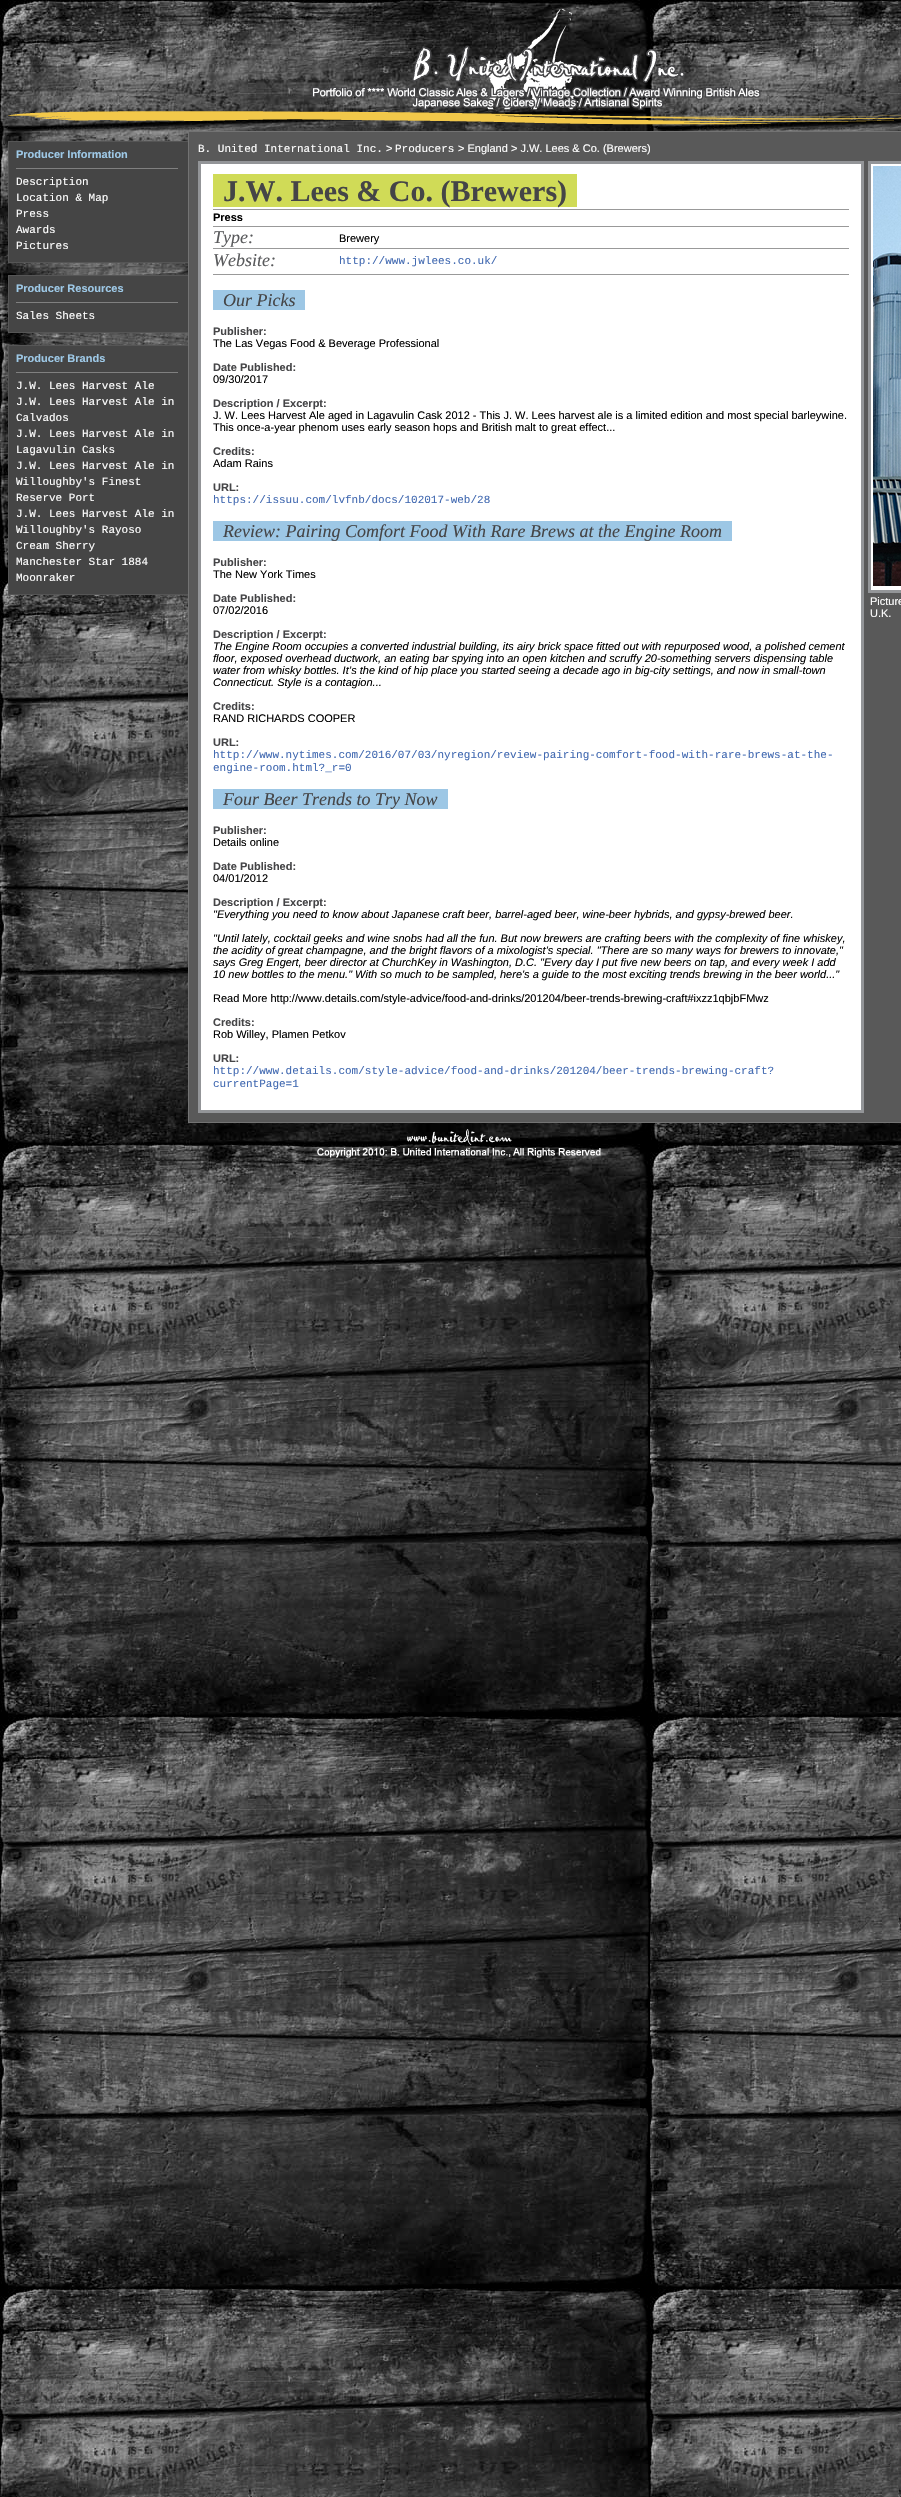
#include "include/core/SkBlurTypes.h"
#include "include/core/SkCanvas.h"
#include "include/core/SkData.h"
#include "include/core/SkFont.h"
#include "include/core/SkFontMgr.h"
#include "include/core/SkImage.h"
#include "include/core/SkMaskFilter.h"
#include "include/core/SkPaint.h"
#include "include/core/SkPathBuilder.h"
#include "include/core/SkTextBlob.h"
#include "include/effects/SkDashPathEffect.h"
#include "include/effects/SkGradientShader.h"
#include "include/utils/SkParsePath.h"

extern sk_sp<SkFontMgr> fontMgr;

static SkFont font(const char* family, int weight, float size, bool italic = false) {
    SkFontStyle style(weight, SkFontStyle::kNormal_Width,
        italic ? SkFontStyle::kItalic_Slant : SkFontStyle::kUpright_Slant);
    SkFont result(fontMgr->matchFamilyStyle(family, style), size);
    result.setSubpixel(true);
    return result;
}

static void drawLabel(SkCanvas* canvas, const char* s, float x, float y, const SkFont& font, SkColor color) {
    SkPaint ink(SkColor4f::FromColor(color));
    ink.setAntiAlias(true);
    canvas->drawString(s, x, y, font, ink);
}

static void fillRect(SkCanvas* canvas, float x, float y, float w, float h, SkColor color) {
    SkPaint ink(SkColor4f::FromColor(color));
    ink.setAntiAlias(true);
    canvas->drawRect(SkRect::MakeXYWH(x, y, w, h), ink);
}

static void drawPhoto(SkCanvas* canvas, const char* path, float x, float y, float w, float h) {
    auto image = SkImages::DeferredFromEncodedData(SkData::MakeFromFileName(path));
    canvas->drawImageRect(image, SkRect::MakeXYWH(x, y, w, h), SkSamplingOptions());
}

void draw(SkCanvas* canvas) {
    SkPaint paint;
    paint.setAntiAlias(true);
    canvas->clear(0xFFFFFFFF);
    drawPhoto(canvas, "assets/img1.png", 0, 0, 901, 2497);
    drawPhoto(canvas, "assets/img2.png", 8, 9, 893, 116);
    fillRect(canvas, 9, 142, 179, 120, 0xFF454545);
    fillRect(canvas, 8, 141, 180, 1, 0xFF555555);
    fillRect(canvas, 8, 262, 180, 1, 0xFF555555);
    fillRect(canvas, 8, 141, 1, 122, 0xFF555555);
    SkFont font1 = font("Liberation Sans", 700, 11);
    drawLabel(canvas, "Producer Information", 16, 158, font1, 0xFF9EC9E7);
    fillRect(canvas, 16, 168, 162, 1, 0xFF808080);
    SkFont font2 = font("Liberation Mono", 400, 11);
    drawLabel(canvas, "Description", 16, 185, font2, 0xFFFFFFFF);
    drawLabel(canvas, "Location & Map", 16, 201, font2, 0xFFFFFFFF);
    drawLabel(canvas, "Press", 16, 217, font2, 0xFFFFFFFF);
    drawLabel(canvas, "Awards", 16, 233, font2, 0xFFFFFFFF);
    drawLabel(canvas, "Pictures", 16, 249, font2, 0xFFFFFFFF);
    fillRect(canvas, 9, 276, 179, 56, 0xFF454545);
    fillRect(canvas, 8, 275, 180, 1, 0xFF555555);
    fillRect(canvas, 8, 332, 180, 1, 0xFF555555);
    fillRect(canvas, 8, 275, 1, 58, 0xFF555555);
    drawLabel(canvas, "Producer Resources", 16, 292, font1, 0xFF9EC9E7);
    fillRect(canvas, 16, 302, 162, 1, 0xFF808080);
    drawLabel(canvas, "Sales Sheets", 16, 319, font2, 0xFFFFFFFF);
    fillRect(canvas, 9, 346, 179, 248, 0xFF454545);
    fillRect(canvas, 8, 345, 180, 1, 0xFF555555);
    fillRect(canvas, 8, 594, 180, 1, 0xFF555555);
    fillRect(canvas, 8, 345, 1, 250, 0xFF555555);
    drawLabel(canvas, "Producer Brands", 16, 362, font1, 0xFF9EC9E7);
    fillRect(canvas, 16, 372, 162, 1, 0xFF808080);
    drawLabel(canvas, "J.W. Lees Harvest Ale", 16, 389, font2, 0xFFFFFFFF);
    drawLabel(canvas, "J.W. Lees Harvest Ale in", 16, 405, font2, 0xFFFFFFFF);
    drawLabel(canvas, "Calvados", 16, 421, font2, 0xFFFFFFFF);
    drawLabel(canvas, "J.W. Lees Harvest Ale in", 16, 437, font2, 0xFFFFFFFF);
    drawLabel(canvas, "Lagavulin Casks", 16, 453, font2, 0xFFFFFFFF);
    drawLabel(canvas, "J.W. Lees Harvest Ale in", 16, 469, font2, 0xFFFFFFFF);
    drawLabel(canvas, "Willoughby's Finest", 16, 485, font2, 0xFFFFFFFF);
    drawLabel(canvas, "Reserve Port", 16, 501, font2, 0xFFFFFFFF);
    drawLabel(canvas, "J.W. Lees Harvest Ale in", 16, 517, font2, 0xFFFFFFFF);
    drawLabel(canvas, "Willoughby's Rayoso", 16, 533, font2, 0xFFFFFFFF);
    drawLabel(canvas, "Cream Sherry", 16, 549, font2, 0xFFFFFFFF);
    drawLabel(canvas, "Manchester Star 1884", 16, 565, font2, 0xFFFFFFFF);
    drawLabel(canvas, "Moonraker", 16, 581, font2, 0xFFFFFFFF);
    paint.setColor(0xFF595959);
    canvas->drawRect(SkRect::MakeXYWH(188.5f, 131.5f, 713, 991), paint);
    paint.setStroke(true);
    paint.setStrokeWidth(1);
    paint.setColor(0xFF737373);
    canvas->drawRect(SkRect::MakeXYWH(188.5f, 131.5f, 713, 991), paint);
    drawLabel(canvas, "B. United International Inc.", 198, 152, font2, 0xFFFFFFFF);
    SkFont font3 = font("Liberation Sans", 400, 11);
    drawLabel(canvas, ">", 386, 152, font3, 0xFFFFFFFF);
    drawLabel(canvas, "Producers", 395, 152, font2, 0xFFFFFFFF);
    drawLabel(canvas, "> England > J.W. Lees & Co. (Brewers)", 458, 152, font3, 0xFFFFFFFF);
    paint.setStroke(false);
    paint.setColor(0xFFFFFFFF);
    canvas->drawRect(SkRect::MakeXYWH(199.5f, 162.5f, 663, 949), paint);
    paint.setStroke(true);
    paint.setStrokeWidth(3);
    paint.setColor(0xFF939598);
    canvas->drawRect(SkRect::MakeXYWH(199.5f, 162.5f, 663, 949), paint);
    fillRect(canvas, 213, 174, 364, 33, 0xFFD0DB57);
    SkFont font4 = font("Liberation Serif", 700, 30);
    drawLabel(canvas, "J.W. Lees & Co. (Brewers)", 223, 201, font4, 0xFF454547);
    fillRect(canvas, 213, 209, 636, 1, 0xFF999999);
    fillRect(canvas, 213, 226, 636, 1, 0xFF999999);
    drawLabel(canvas, "Press", 213, 221, font1, 0xFF000000);
    SkFont font5 = font("Liberation Serif", 400, 18, true);
    drawLabel(canvas, "Type:", 213, 243, font5, 0xFF595A5C);
    drawLabel(canvas, "Brewery", 339, 242, font3, 0xFF000000);
    fillRect(canvas, 213, 248, 636, 1, 0xFF999999);
    fillRect(canvas, 213, 274, 636, 1, 0xFF999999);
    drawLabel(canvas, "Website:", 213, 266, font5, 0xFF595A5C);
    drawLabel(canvas, "http://www.jwlees.co.uk/", 339, 264, font2, 0xFF4169B1);
    fillRect(canvas, 213, 290, 92, 20, 0xFF9DC7E5);
    drawLabel(canvas, "Our Picks", 223, 306, font5, 0xFF454547);
    drawLabel(canvas, "Publisher:", 213, 335, font1, 0xFF454547);
    drawLabel(canvas, "The Las Vegas Food & Beverage Professional", 213, 347, font3, 0xFF000000);
    drawLabel(canvas, "Date Published:", 213, 371, font1, 0xFF454547);
    drawLabel(canvas, "09/30/2017", 213, 383, font3, 0xFF000000);
    drawLabel(canvas, "Description / Excerpt:", 213, 407, font1, 0xFF454547);
    drawLabel(canvas, "J. W. Lees Harvest Ale aged in Lagavulin Cask 2012 - This J. W. Lees harvest ale is a limited edition and most special barleywine.", 213, 419, font3, 0xFF000000);
    drawLabel(canvas, "This once-a-year phenom uses early season hops and British malt to great effect...", 213, 431, font3, 0xFF000000);
    drawLabel(canvas, "Credits:", 213, 455, font1, 0xFF454547);
    drawLabel(canvas, "Adam Rains", 213, 467, font3, 0xFF000000);
    drawLabel(canvas, "URL:", 213, 491, font1, 0xFF454547);
    drawLabel(canvas, "https://issuu.com/lvfnb/docs/102017-web/28", 213, 503, font2, 0xFF4169B1);
    fillRect(canvas, 213, 521, 519, 20, 0xFF9DC7E5);
    drawLabel(canvas, "Review: Pairing Comfort Food With Rare Brews at the Engine Room", 223, 537, font5, 0xFF454547);
    drawLabel(canvas, "Publisher:", 213, 566, font1, 0xFF454547);
    drawLabel(canvas, "The New York Times", 213, 578, font3, 0xFF000000);
    drawLabel(canvas, "Date Published:", 213, 602, font1, 0xFF454547);
    drawLabel(canvas, "07/02/2016", 213, 614, font3, 0xFF000000);
    drawLabel(canvas, "Description / Excerpt:", 213, 638, font1, 0xFF454547);
    SkFont font6 = font("Liberation Sans", 400, 11, true);
    drawLabel(canvas, "The Engine Room occupies a converted industrial building, its airy brick space fitted out with repurposed wood, a polished cement", 213, 650, font6, 0xFF000000);
    drawLabel(canvas, "floor, exposed overhead ductwork, an eating bar spying into an open kitchen and scruffy 20-something servers dispensing table", 213, 662, font6, 0xFF000000);
    drawLabel(canvas, "water from whisky bottles. It’s the kind of hip place you started seeing a decade ago in big-city settings, and now in small-town", 213, 674, font6, 0xFF000000);
    drawLabel(canvas, "Connecticut. Style is a contagion...", 213, 686, font6, 0xFF000000);
    drawLabel(canvas, "Credits:", 213, 710, font1, 0xFF454547);
    drawLabel(canvas, "RAND RICHARDS COOPER", 213, 722, font3, 0xFF000000);
    drawLabel(canvas, "URL:", 213, 746, font1, 0xFF454547);
    drawLabel(canvas, "http://www.nytimes.com/2016/07/03/nyregion/review-pairing-comfort-food-with-rare-brews-at-the-", 213, 758, font2, 0xFF4169B1);
    drawLabel(canvas, "engine-room.html?_r=0", 213, 771, font2, 0xFF4169B1);
    fillRect(canvas, 213, 789, 235, 20, 0xFF9DC7E5);
    drawLabel(canvas, "Four Beer Trends to Try Now", 223, 805, font5, 0xFF454547);
    drawLabel(canvas, "Publisher:", 213, 834, font1, 0xFF454547);
    drawLabel(canvas, "Details online", 213, 846, font3, 0xFF000000);
    drawLabel(canvas, "Date Published:", 213, 870, font1, 0xFF454547);
    drawLabel(canvas, "04/01/2012", 213, 882, font3, 0xFF000000);
    drawLabel(canvas, "Description / Excerpt:", 213, 906, font1, 0xFF454547);
    drawLabel(canvas, "\"Everything you need to know about Japanese craft beer, barrel-aged beer, wine-beer hybrids, and gypsy-brewed beer.", 213, 918, font6, 0xFF000000);
    drawLabel(canvas, "\"Until lately, cocktail geeks and wine snobs had all the fun. But now brewers are crafting beers with the complexity of fine whiskey,", 213, 942, font6, 0xFF000000);
    drawLabel(canvas, "the acidity of great champagne, and the bright flavors of a mixologist's special. \"There are so many ways for brewers to innovate,\"", 213, 954, font6, 0xFF000000);
    drawLabel(canvas, "says Greg Engert, beer director at ChurchKey in Washington, D.C. \"Every day I put five new beers on tap, and every week I add", 213, 966, font6, 0xFF000000);
    drawLabel(canvas, "10 new bottles to the menu.\" With so much to be sampled, here's a guide to the most exciting trends brewing in the beer world...\"", 213, 978, font6, 0xFF000000);
    drawLabel(canvas, "Read More http://www.details.com/style-advice/food-and-drinks/201204/beer-trends-brewing-craft#ixzz1qbjbFMwz", 213, 1002, font3, 0xFF000000);
    drawLabel(canvas, "Credits:", 213, 1026, font1, 0xFF454547);
    drawLabel(canvas, "Rob Willey, Plamen Petkov", 213, 1038, font3, 0xFF000000);
    drawLabel(canvas, "URL:", 213, 1062, font1, 0xFF454547);
    drawLabel(canvas, "http://www.details.com/style-advice/food-and-drinks/201204/beer-trends-brewing-craft?", 213, 1074, font2, 0xFF4169B1);
    drawLabel(canvas, "currentPage=1", 213, 1087, font2, 0xFF4169B1);
    paint.setStroke(false);
    paint.setColor(0xFFFFFFFF);
    canvas->drawRect(SkRect::MakeXYWH(869.5f, 162.5f, 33, 429), paint);
    paint.setStroke(true);
    paint.setColor(0xFF939598);
    canvas->drawRect(SkRect::MakeXYWH(869.5f, 162.5f, 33, 429), paint);
    drawPhoto(canvas, "assets/img3.png", 873, 166, 28, 420);
    drawLabel(canvas, "Picture", 870, 605, font3, 0xFFFFFFFF);
    drawLabel(canvas, "U.K.", 870, 617, font3, 0xFFFFFFFF);
    drawPhoto(canvas, "assets/img4.png", 317, 1129, 284, 29);
}
